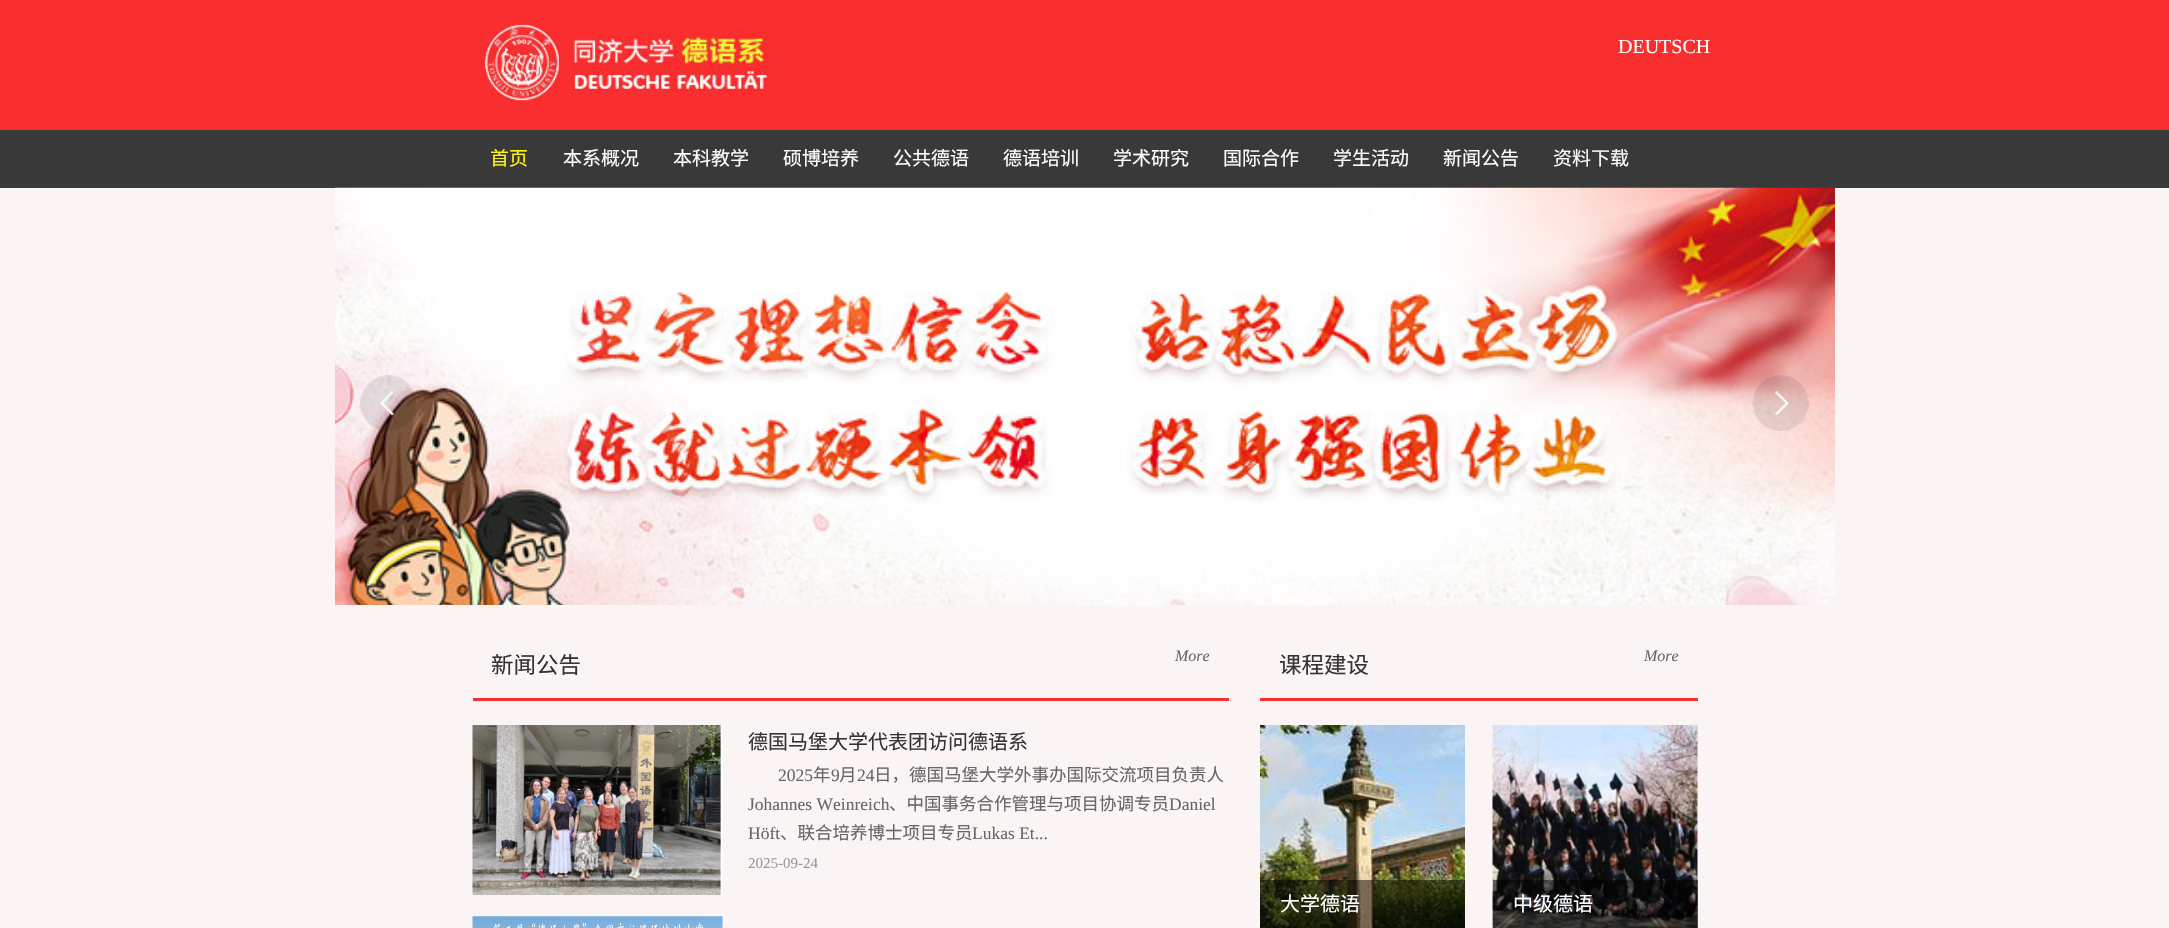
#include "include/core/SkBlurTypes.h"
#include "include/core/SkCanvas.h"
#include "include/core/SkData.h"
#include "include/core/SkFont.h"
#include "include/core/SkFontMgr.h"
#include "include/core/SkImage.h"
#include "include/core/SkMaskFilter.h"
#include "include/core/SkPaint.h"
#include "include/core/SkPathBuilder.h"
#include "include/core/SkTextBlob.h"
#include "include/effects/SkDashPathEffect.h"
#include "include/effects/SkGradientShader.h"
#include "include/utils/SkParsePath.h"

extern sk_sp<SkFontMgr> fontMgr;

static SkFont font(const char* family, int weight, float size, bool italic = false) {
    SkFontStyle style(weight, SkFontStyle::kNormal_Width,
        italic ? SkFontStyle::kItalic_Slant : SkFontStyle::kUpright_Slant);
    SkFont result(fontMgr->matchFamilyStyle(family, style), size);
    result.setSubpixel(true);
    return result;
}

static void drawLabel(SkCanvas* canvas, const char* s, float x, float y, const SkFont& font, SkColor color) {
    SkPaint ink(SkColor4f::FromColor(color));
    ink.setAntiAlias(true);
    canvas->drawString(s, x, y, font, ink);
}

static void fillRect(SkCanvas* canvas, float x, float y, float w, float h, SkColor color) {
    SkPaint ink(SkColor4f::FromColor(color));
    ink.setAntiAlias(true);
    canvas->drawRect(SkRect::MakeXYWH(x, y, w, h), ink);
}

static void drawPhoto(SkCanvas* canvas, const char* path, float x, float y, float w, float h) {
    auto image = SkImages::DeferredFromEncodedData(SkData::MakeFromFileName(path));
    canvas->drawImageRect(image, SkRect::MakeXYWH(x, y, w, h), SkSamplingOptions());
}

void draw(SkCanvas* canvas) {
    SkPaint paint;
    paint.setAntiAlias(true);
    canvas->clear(0xFFFAF4F4);
    fillRect(canvas, 0, 0, 2169, 130, 0xFFF92E2E);
    drawPhoto(canvas, "assets/img1.png", 480, 20, 290, 81);
    SkFont font1 = font("Liberation Serif", 400, 20);
    drawLabel(canvas, "DEUTSCH", 1618, 53, font1, 0xFFFFFFFF);
    fillRect(canvas, 0, 130, 2169, 58, 0xFF393939);
    SkFont font2 = font("Noto Sans CJK SC", 400, 19);
    drawLabel(canvas, "首页", 490, 165, font2, 0xFFFFF613);
    drawLabel(canvas, "本系概况", 563, 165, font2, 0xFFFFFFFF);
    drawLabel(canvas, "本科教学", 673, 165, font2, 0xFFFFFFFF);
    drawLabel(canvas, "硕博培养", 783, 165, font2, 0xFFFFFFFF);
    drawLabel(canvas, "公共德语", 893, 165, font2, 0xFFFFFFFF);
    drawLabel(canvas, "德语培训", 1003, 165, font2, 0xFFFFFFFF);
    drawLabel(canvas, "学术研究", 1113, 165, font2, 0xFFFFFFFF);
    drawLabel(canvas, "国际合作", 1223, 165, font2, 0xFFFFFFFF);
    drawLabel(canvas, "学生活动", 1333, 165, font2, 0xFFFFFFFF);
    drawLabel(canvas, "新闻公告", 1443, 165, font2, 0xFFFFFFFF);
    drawLabel(canvas, "资料下载", 1553, 165, font2, 0xFFFFFFFF);
    drawPhoto(canvas, "assets/img2.png", 335, 187, 1500, 418);
    drawPhoto(canvas, "assets/img3.png", 360, 375, 56, 56);
    drawPhoto(canvas, "assets/img4.png", 1752, 375, 57, 56);
    fillRect(canvas, 473, 698, 756, 3, 0xFFF92E2E);
    SkFont font3 = font("Noto Sans CJK SC", 400, 22.5f);
    drawLabel(canvas, "新闻公告", 491, 673, font3, 0xFF333333);
    SkFont font4 = font("Liberation Serif", 400, 16, true);
    drawLabel(canvas, "More", 1175, 661, font4, 0xFF666666);
    drawPhoto(canvas, "assets/img5.png", 472, 725, 251, 170);
    SkFont font5 = font("Noto Sans CJK SC", 400, 20);
    drawLabel(canvas, "德国马堡大学代表团访问德语系", 748, 749, font5, 0xFF333333);
    SkFont font6 = font("Liberation Serif", 400, 17.5f);
    drawLabel(canvas, "2025", 778, 781, font6, 0xFF666666);
    SkFont font7 = font("Noto Sans CJK SC", 400, 17.5f);
    drawLabel(canvas, "年", 813, 781, font7, 0xFF666666);
    drawLabel(canvas, "9", 831, 781, font6, 0xFF666666);
    drawLabel(canvas, "月", 839, 781, font7, 0xFF666666);
    drawLabel(canvas, "24", 857, 781, font6, 0xFF666666);
    drawLabel(canvas, "日，德国马堡大学外事办国际交流项目负责人", 874, 781, font7, 0xFF666666);
    drawLabel(canvas, "Johannes Weinreich", 748, 810, font6, 0xFF666666);
    drawLabel(canvas, "、中国事务合作管理与项目协调专员", 889, 810, font7, 0xFF666666);
    drawLabel(canvas, "Daniel", 1169, 810, font6, 0xFF666666);
    drawLabel(canvas, "Höft", 748, 839, font6, 0xFF666666);
    drawLabel(canvas, "、联合培养博士项目专员", 780, 839, font7, 0xFF666666);
    drawLabel(canvas, "Lukas Et...", 972, 839, font6, 0xFF666666);
    SkFont font8 = font("Liberation Serif", 400, 15);
    drawLabel(canvas, "2025-09-24", 748, 868, font8, 0xFF999999);
    drawPhoto(canvas, "assets/img6.png", 472, 916, 251, 12);
    fillRect(canvas, 1260, 698, 438, 3, 0xFFF92E2E);
    drawLabel(canvas, "课程建设", 1279, 673, font3, 0xFF333333);
    drawLabel(canvas, "More", 1644, 661, font4, 0xFF666666);
    drawPhoto(canvas, "assets/img7.png", 1260, 725, 205, 203);
    fillRect(canvas, 1260, 880, 205, 48, 0x80000000);
    drawLabel(canvas, "大学德语", 1280, 911, font5, 0xFFFFFFFF);
    drawPhoto(canvas, "assets/img8.png", 1492, 725, 206, 203);
    fillRect(canvas, 1493, 880, 205, 48, 0x80000000);
    drawLabel(canvas, "中级德语", 1513, 911, font5, 0xFFFFFFFF);
}
